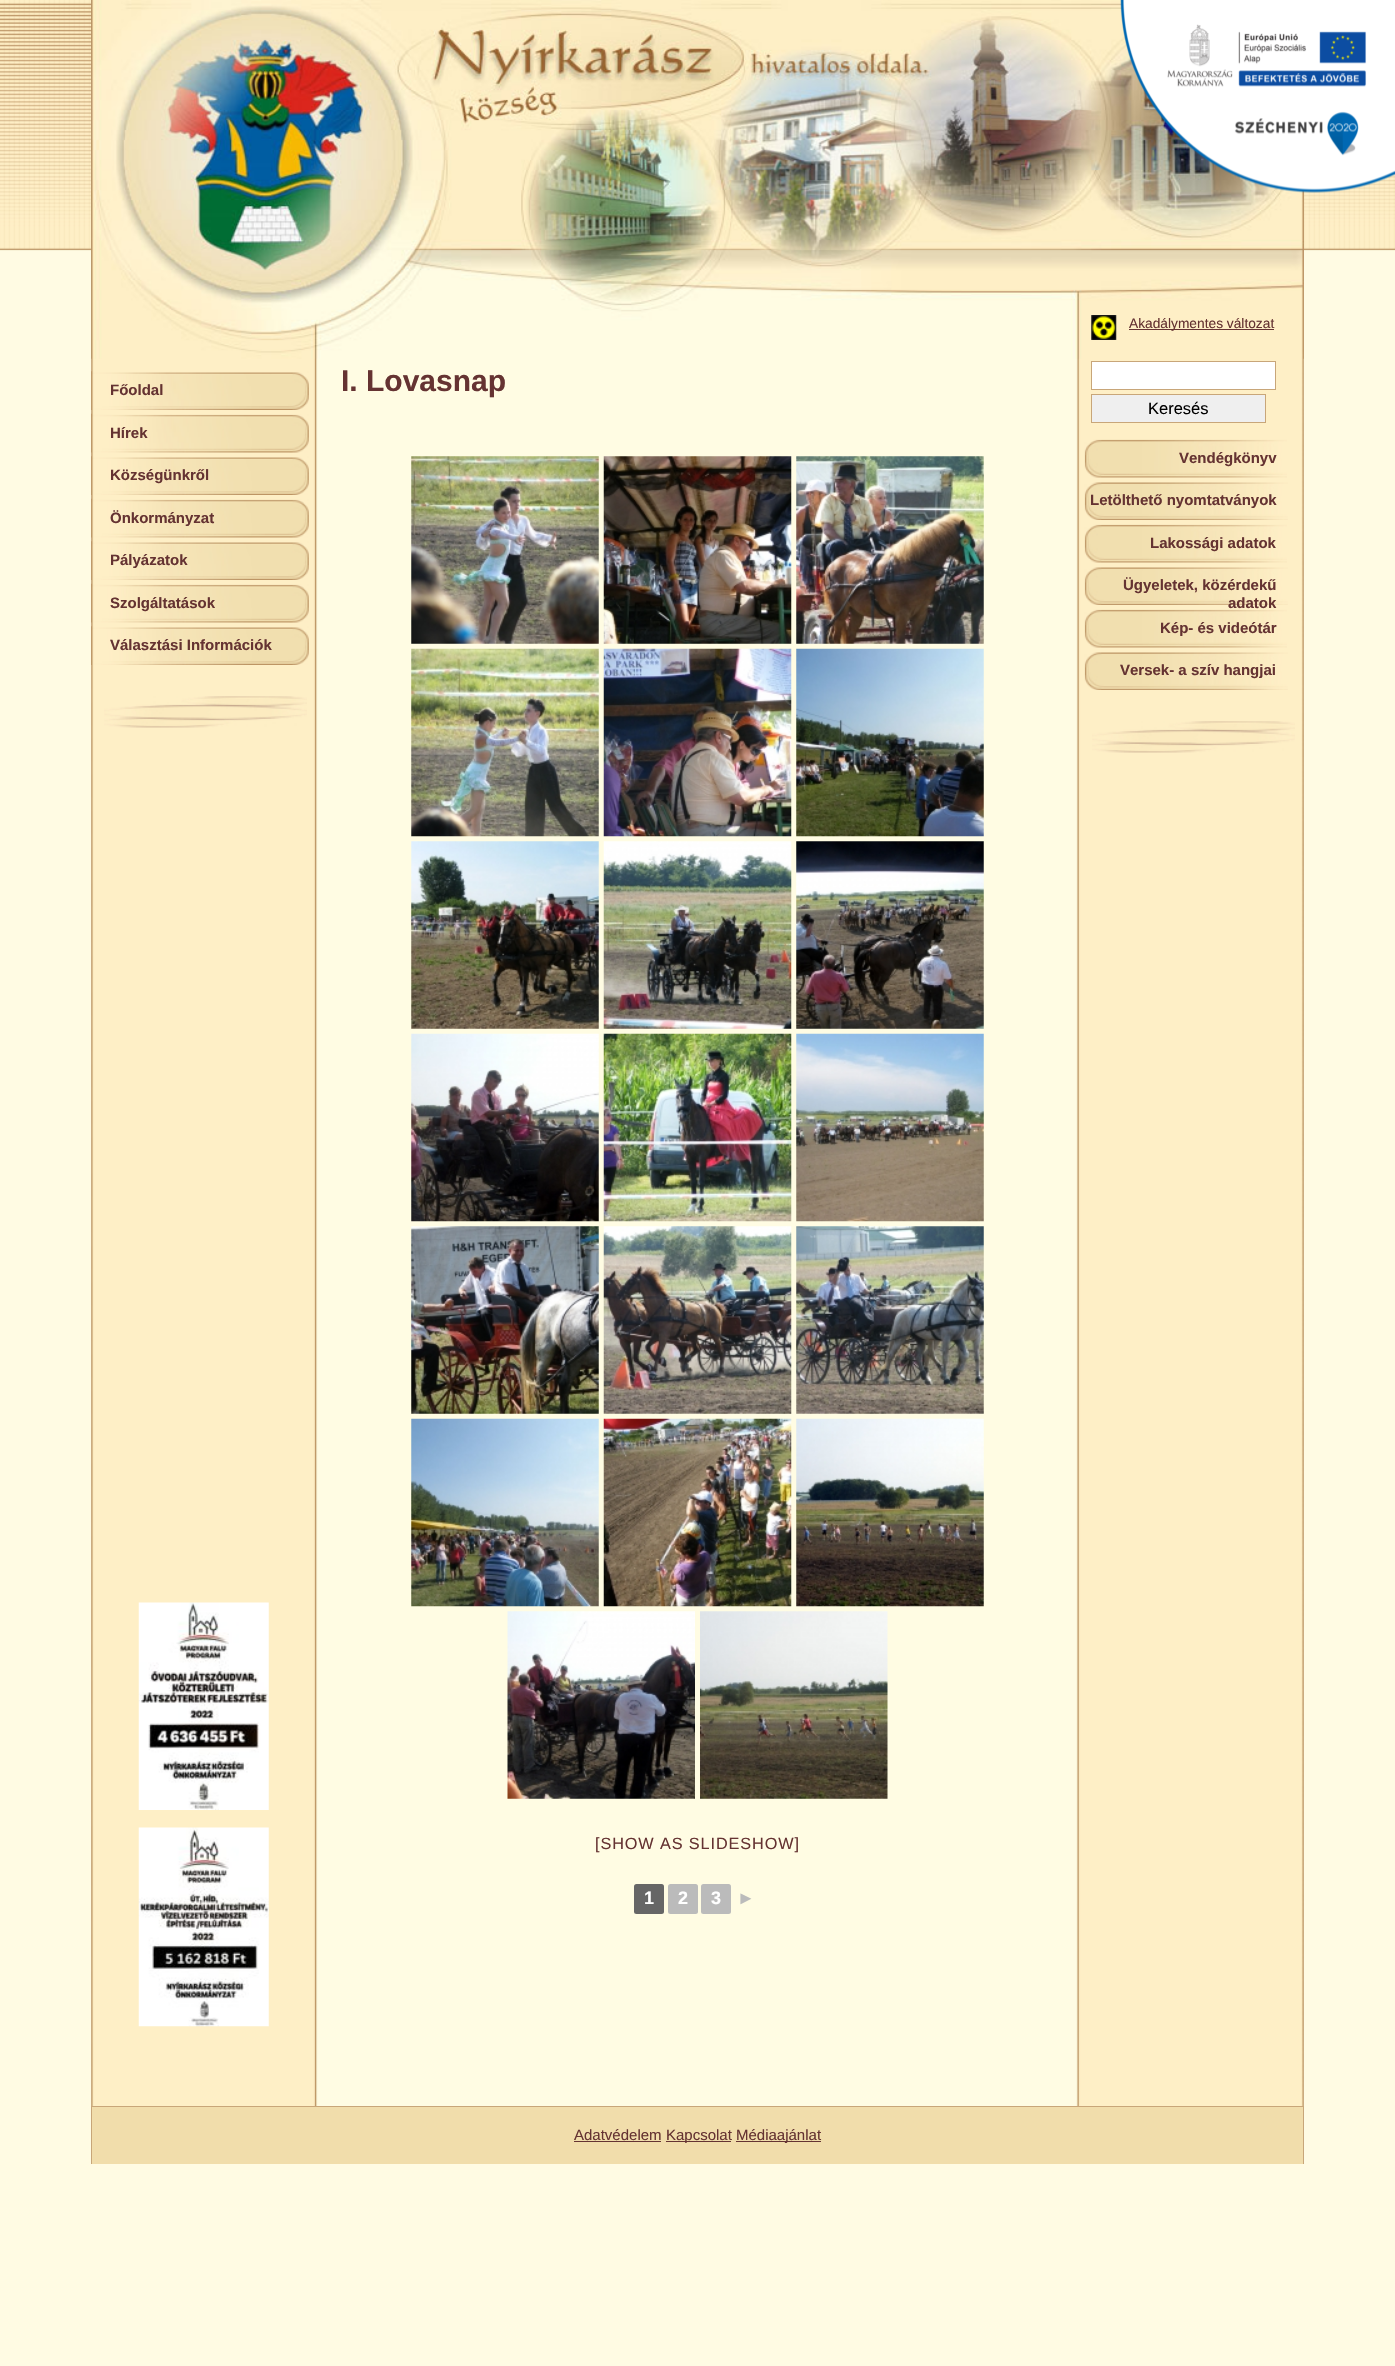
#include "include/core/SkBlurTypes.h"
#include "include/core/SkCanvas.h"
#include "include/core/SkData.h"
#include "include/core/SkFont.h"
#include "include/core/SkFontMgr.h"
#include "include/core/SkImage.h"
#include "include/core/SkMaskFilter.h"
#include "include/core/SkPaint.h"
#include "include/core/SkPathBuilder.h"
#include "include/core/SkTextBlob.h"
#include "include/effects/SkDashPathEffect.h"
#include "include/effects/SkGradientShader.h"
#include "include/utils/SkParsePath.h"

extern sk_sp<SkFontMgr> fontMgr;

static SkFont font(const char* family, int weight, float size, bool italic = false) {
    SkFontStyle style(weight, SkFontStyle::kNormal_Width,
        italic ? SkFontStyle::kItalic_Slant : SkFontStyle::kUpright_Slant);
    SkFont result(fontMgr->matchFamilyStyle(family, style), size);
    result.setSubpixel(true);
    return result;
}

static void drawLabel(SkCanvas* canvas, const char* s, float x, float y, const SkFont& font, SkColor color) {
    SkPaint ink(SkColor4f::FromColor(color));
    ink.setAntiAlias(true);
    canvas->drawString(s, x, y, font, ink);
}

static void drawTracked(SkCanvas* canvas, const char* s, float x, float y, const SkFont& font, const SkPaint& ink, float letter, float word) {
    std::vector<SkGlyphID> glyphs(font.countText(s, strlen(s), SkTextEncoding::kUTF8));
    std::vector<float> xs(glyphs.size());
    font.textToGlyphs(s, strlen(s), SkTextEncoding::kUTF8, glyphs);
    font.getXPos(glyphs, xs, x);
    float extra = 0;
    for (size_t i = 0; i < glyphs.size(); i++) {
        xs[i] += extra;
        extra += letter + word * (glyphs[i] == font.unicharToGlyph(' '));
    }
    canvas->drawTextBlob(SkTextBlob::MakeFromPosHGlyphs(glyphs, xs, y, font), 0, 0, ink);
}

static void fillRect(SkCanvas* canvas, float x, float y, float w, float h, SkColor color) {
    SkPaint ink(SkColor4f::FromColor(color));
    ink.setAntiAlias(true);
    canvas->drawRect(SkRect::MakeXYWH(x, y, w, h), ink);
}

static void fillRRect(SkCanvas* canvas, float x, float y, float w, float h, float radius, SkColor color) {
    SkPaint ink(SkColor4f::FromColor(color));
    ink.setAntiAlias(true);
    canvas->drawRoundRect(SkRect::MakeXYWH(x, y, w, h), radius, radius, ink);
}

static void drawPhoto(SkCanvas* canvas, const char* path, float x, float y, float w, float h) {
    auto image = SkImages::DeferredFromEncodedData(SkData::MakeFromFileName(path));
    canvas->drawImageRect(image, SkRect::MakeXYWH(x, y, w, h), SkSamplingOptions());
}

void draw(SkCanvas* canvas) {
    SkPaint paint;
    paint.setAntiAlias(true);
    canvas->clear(0xFFFFFBE3);
    drawPhoto(canvas, "assets/img1.png", 0, 0, 1395, 251);
    drawPhoto(canvas, "assets/img2.png", 91, 0, 1213, 2106);
    drawPhoto(canvas, "assets/img3.png", 91, 0, 1213, 359);
    drawPhoto(canvas, "assets/img4.png", 1120, 0, 275, 193);
    drawPhoto(canvas, "assets/img5.png", 91, 371, 218, 39);
    SkFont font1 = font("Liberation Sans", 700, 15);
    drawLabel(canvas, "Főoldal", 110, 395, font1, 0xFF653332);
    drawPhoto(canvas, "assets/img6.png", 91, 413, 218, 40);
    drawLabel(canvas, "Hírek", 110, 438, font1, 0xFF653332);
    drawPhoto(canvas, "assets/img7.png", 91, 456, 218, 39);
    drawLabel(canvas, "Községünkről", 110, 480, font1, 0xFF653332);
    drawPhoto(canvas, "assets/img8.png", 91, 498, 218, 40);
    drawLabel(canvas, "Önkormányzat", 110, 523, font1, 0xFF653332);
    drawPhoto(canvas, "assets/img9.png", 91, 541, 218, 39);
    drawLabel(canvas, "Pályázatok", 110, 565, font1, 0xFF653332);
    drawPhoto(canvas, "assets/img10.png", 91, 583, 218, 40);
    drawLabel(canvas, "Szolgáltatások", 110, 608, font1, 0xFF653332);
    drawPhoto(canvas, "assets/img11.png", 91, 626, 218, 39);
    drawLabel(canvas, "Választási Információk", 110, 650, font1, 0xFF653332);
    drawPhoto(canvas, "assets/img12.png", 104, 696, 203, 32);
    drawPhoto(canvas, "assets/img13.png", 138, 1602, 131, 208);
    drawPhoto(canvas, "assets/img14.png", 138, 1827, 131, 200);
    SkFont font2 = font("Liberation Sans", 700, 30);
    drawLabel(canvas, "I. Lovasnap", 341, 391, font2, 0xFF653332);
    drawPhoto(canvas, "assets/img15.png", 411, 456, 188, 188);
    drawPhoto(canvas, "assets/img16.png", 603, 456, 189, 188);
    drawPhoto(canvas, "assets/img17.png", 796, 456, 188, 188);
    drawPhoto(canvas, "assets/img18.png", 411, 648, 188, 189);
    drawPhoto(canvas, "assets/img19.png", 603, 648, 189, 189);
    drawPhoto(canvas, "assets/img20.png", 796, 648, 188, 189);
    drawPhoto(canvas, "assets/img21.png", 411, 841, 188, 188);
    drawPhoto(canvas, "assets/img22.png", 603, 841, 189, 188);
    drawPhoto(canvas, "assets/img23.png", 796, 841, 188, 188);
    drawPhoto(canvas, "assets/img24.png", 411, 1033, 188, 189);
    drawPhoto(canvas, "assets/img25.png", 603, 1033, 189, 189);
    drawPhoto(canvas, "assets/img26.png", 796, 1033, 188, 189);
    drawPhoto(canvas, "assets/img27.png", 411, 1226, 188, 188);
    drawPhoto(canvas, "assets/img28.png", 603, 1226, 189, 188);
    drawPhoto(canvas, "assets/img29.png", 796, 1226, 188, 188);
    drawPhoto(canvas, "assets/img30.png", 411, 1418, 188, 189);
    drawPhoto(canvas, "assets/img31.png", 603, 1418, 189, 189);
    drawPhoto(canvas, "assets/img32.png", 796, 1418, 188, 189);
    drawPhoto(canvas, "assets/img33.png", 507, 1611, 188, 188);
    drawPhoto(canvas, "assets/img34.png", 700, 1611, 188, 188);
    SkFont font3 = font("Liberation Sans", 400, 16.25f);
    paint.setColor(0xFF653332);
    drawTracked(canvas, "[SHOW AS SLIDESHOW]", 595, 1849, font3, paint, 0.9f, 0);
    fillRRect(canvas, 634, 1884, 30, 30, 2.5f, 0xFF666666);
    SkFont font4 = font("Liberation Sans", 700, 18);
    drawLabel(canvas, "1", 644, 1904, font4, 0xFFFFFFFF);
    fillRRect(canvas, 668, 1884, 30, 30, 2.5f, 0xFFBBBBBB);
    drawLabel(canvas, "2", 678, 1904, font4, 0xFFFFFFFF);
    fillRRect(canvas, 701, 1884, 30, 30, 2.5f, 0xFFBBBBBB);
    drawLabel(canvas, "3", 711, 1904, font4, 0xFFFFFFFF);
    drawLabel(canvas, "►", 737, 1904, font4, 0xFFBBBBBB);
    drawPhoto(canvas, "assets/img35.png", 1091, 315, 26, 25);
    fillRect(canvas, 1129, 329, 145, 1, 0xFF653332);
    SkFont font5 = font("Liberation Sans", 400, 13.75f);
    drawLabel(canvas, "Akadálymentes változat", 1129, 328, font5, 0xFF653332);
    paint.setColor(0xFFFFFFFF);
    canvas->drawRect(SkRect::MakeXYWH(1091.5f, 361.5f, 184, 28), paint);
    paint.setStroke(true);
    paint.setStrokeWidth(1);
    paint.setColor(0xFFC8A679);
    canvas->drawRect(SkRect::MakeXYWH(1091.5f, 361.5f, 184, 28), paint);
    paint.setStroke(false);
    paint.setColor(0xFFEFEFEF);
    canvas->drawRect(SkRect::MakeXYWH(1091.5f, 394.5f, 174, 28), paint);
    paint.setStroke(true);
    paint.setColor(0xFFC8A679);
    canvas->drawRect(SkRect::MakeXYWH(1091.5f, 394.5f, 174, 28), paint);
    SkFont font6 = font("Liberation Sans", 400, 16.5f);
    drawLabel(canvas, "Keresés", 1148, 414, font6, 0xFF000000);
    drawPhoto(canvas, "assets/img36.png", 1084, 439, 203, 39);
    drawLabel(canvas, "Vendégkönyv", 1179, 463, font1, 0xFF653332);
    drawPhoto(canvas, "assets/img37.png", 1084, 482, 204, 38);
    drawLabel(canvas, "Letölthető nyomtatványok", 1090, 505, font1, 0xFF653332);
    drawPhoto(canvas, "assets/img36.png", 1084, 524, 203, 39);
    drawLabel(canvas, "Lakossági adatok", 1150, 548, font1, 0xFF653332);
    drawPhoto(canvas, "assets/img38.png", 1084, 567, 204, 38);
    drawLabel(canvas, "Ügyeletek, közérdekű", 1123, 590, font1, 0xFF653332);
    drawLabel(canvas, "adatok", 1228, 608, font1, 0xFF653332);
    drawPhoto(canvas, "assets/img39.png", 1084, 608, 203, 40);
    drawLabel(canvas, "Kép- és videótár", 1160, 633, font1, 0xFF653332);
    drawPhoto(canvas, "assets/img37.png", 1084, 652, 204, 38);
    drawLabel(canvas, "Versek- a szív hangjai", 1120, 675, font1, 0xFF653332);
    drawPhoto(canvas, "assets/img40.png", 1092, 721, 203, 32);
    fillRect(canvas, 92, 2107, 1211, 57, 0xFFF1DDAB);
    fillRect(canvas, 91, 2106, 1213, 1, 0xFFC8A679);
    fillRect(canvas, 1303, 2106, 1, 58, 0xFFC8A679);
    fillRect(canvas, 91, 2106, 1, 58, 0xFFC8A679);
    SkFont font7 = font("Liberation Sans", 400, 15);
    drawLabel(canvas, "Adatvédelem", 574, 2140, font7, 0xFF653332);
    fillRect(canvas, 574, 2141, 87, 1, 0xFF653332);
    fillRect(canvas, 666, 2141, 65, 1, 0xFF653332);
    drawLabel(canvas, "Kapcsolat", 666, 2140, font7, 0xFF653332);
    fillRect(canvas, 736, 2141, 85, 1, 0xFF653332);
    drawLabel(canvas, "Médiaajánlat", 736, 2140, font7, 0xFF653332);
}
